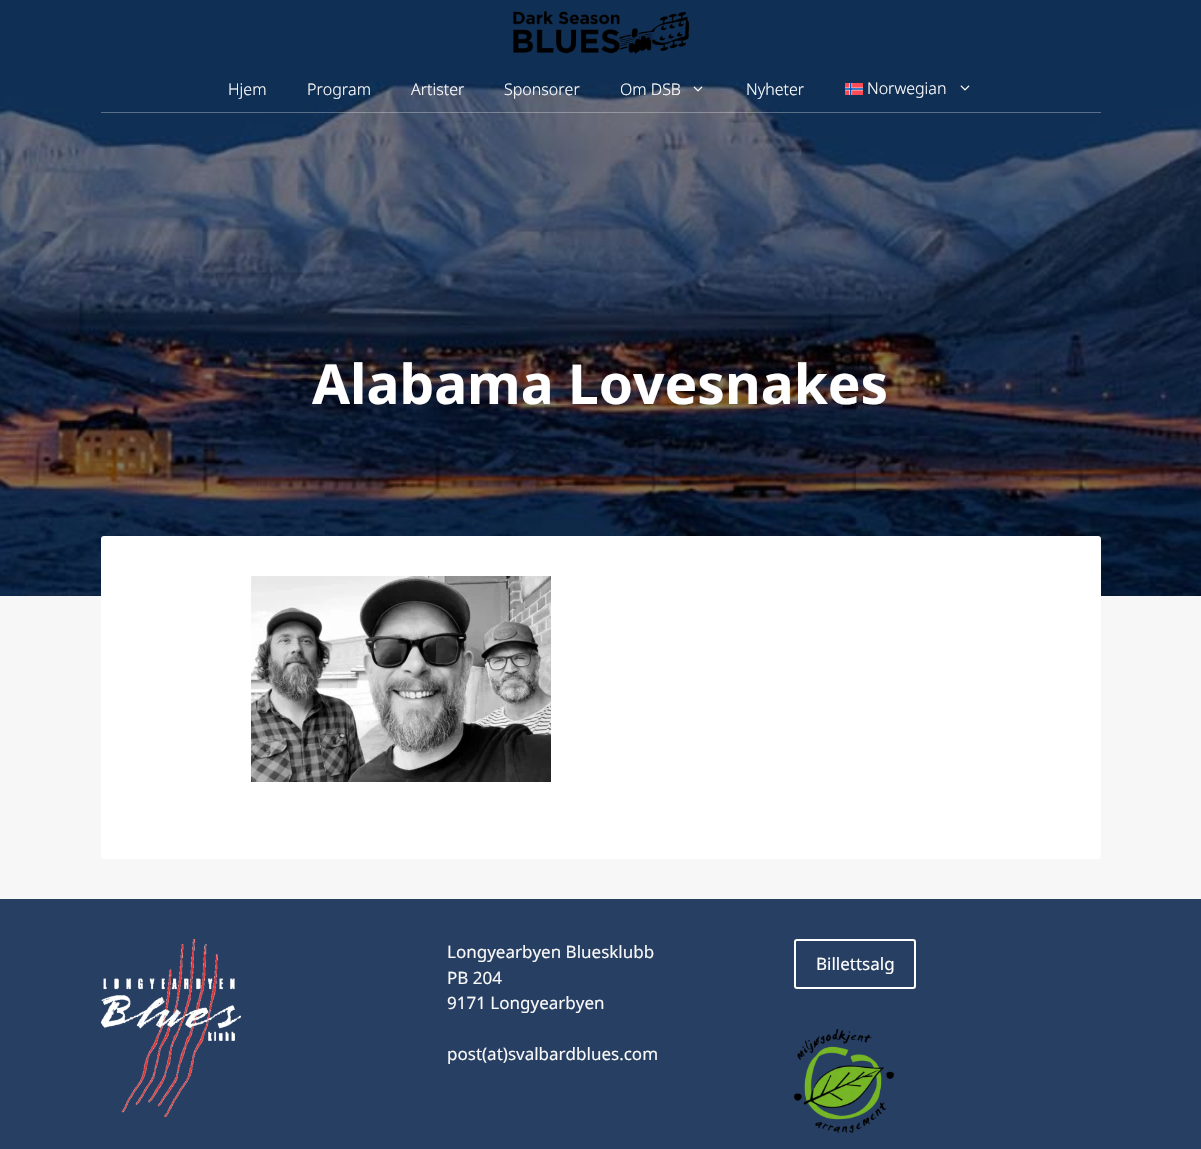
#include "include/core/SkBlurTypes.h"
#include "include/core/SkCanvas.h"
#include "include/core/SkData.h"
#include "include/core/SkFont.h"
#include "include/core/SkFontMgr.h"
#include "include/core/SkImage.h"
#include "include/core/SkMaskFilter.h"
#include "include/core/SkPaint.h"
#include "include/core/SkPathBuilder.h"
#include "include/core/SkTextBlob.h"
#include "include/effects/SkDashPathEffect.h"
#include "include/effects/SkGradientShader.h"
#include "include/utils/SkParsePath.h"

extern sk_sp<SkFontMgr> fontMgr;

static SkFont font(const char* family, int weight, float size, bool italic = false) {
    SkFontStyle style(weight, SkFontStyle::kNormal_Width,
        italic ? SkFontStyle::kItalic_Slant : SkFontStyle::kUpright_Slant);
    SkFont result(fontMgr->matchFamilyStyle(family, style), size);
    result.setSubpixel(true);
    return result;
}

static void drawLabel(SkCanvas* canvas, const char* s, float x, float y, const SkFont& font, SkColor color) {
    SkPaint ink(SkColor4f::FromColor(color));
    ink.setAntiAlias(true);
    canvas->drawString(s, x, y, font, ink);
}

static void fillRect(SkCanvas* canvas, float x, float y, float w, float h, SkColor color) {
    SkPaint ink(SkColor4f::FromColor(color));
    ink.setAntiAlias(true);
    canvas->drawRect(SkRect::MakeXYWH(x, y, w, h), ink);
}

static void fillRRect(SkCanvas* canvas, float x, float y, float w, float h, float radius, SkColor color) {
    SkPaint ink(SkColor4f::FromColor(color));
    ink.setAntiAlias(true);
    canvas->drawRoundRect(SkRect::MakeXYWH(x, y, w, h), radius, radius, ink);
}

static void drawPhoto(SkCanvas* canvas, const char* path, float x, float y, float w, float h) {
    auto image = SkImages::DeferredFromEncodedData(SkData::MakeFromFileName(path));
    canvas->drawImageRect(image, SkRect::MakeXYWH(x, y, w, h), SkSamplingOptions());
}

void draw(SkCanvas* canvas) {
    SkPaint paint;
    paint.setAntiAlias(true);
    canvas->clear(0xFFF7F7F7);
    drawPhoto(canvas, "assets/img5.png", 0, 0, 1201, 596);
    drawPhoto(canvas, "assets/img1.png", 513, 11, 176, 43);
    fillRect(canvas, 101, 112, 1000, 1, 0x4DFFFFFF);
    SkFont font1 = font("Noto Sans", 300, 16);
    drawLabel(canvas, "Hjem", 228, 95, font1, 0xFFFFFFFF);
    drawLabel(canvas, "Program", 307, 95, font1, 0xFFFFFFFF);
    drawLabel(canvas, "Artister", 411, 95, font1, 0xFFFFFFFF);
    drawLabel(canvas, "Sponsorer", 504, 95, font1, 0xFFFFFFFF);
    drawLabel(canvas, "Om DSB", 620, 95, font1, 0xFFFFFFFF);
    drawPhoto(canvas, "assets/img2.png", 693, 86, 10, 6);
    drawLabel(canvas, "Nyheter", 746, 95, font1, 0xFFFFFFFF);
    drawPhoto(canvas, "assets/img3.png", 845, 83, 18, 12);
    drawLabel(canvas, "Norwegian", 867, 94, font1, 0xFFFFFFFF);
    drawPhoto(canvas, "assets/img4.png", 960, 85, 10, 6);
    SkFont font2 = font("Noto Sans", 700, 55);
    drawLabel(canvas, "Alabama Lovesnakes", 312, 404, font2, 0xFFFFFFFF);
    fillRRect(canvas, 101, 536, 1000, 323, 3, 0xFFFFFFFF);
    drawPhoto(canvas, "assets/img6.png", 251, 576, 300, 206);
    fillRect(canvas, 0, 899, 1201, 250, 0xFF273F63);
    drawPhoto(canvas, "assets/img7.png", 101, 939, 140, 178);
    SkFont font3 = font("Noto Sans", 400, 17);
    drawLabel(canvas, "Longyearbyen Bluesklubb", 447, 958, font3, 0xFFF9F9F9);
    drawLabel(canvas, "PB 204", 447, 984, font3, 0xFFF9F9F9);
    drawLabel(canvas, "9171 Longyearbyen", 447, 1009, font3, 0xFFF9F9F9);
    drawLabel(canvas, "post(at)svalbardblues.com", 447, 1060, font3, 0xFFF9F9F9);
    paint.setStroke(true);
    paint.setStrokeWidth(2);
    paint.setColor(0xFFFFFFFF);
    canvas->drawRoundRect(SkRect::MakeXYWH(795, 940, 120, 48), 2, 2, paint);
    drawLabel(canvas, "Billettsalg", 816, 970, font3, 0xFFFFFFFF);
    drawPhoto(canvas, "assets/img8.png", 794, 1029, 100, 104);
}
